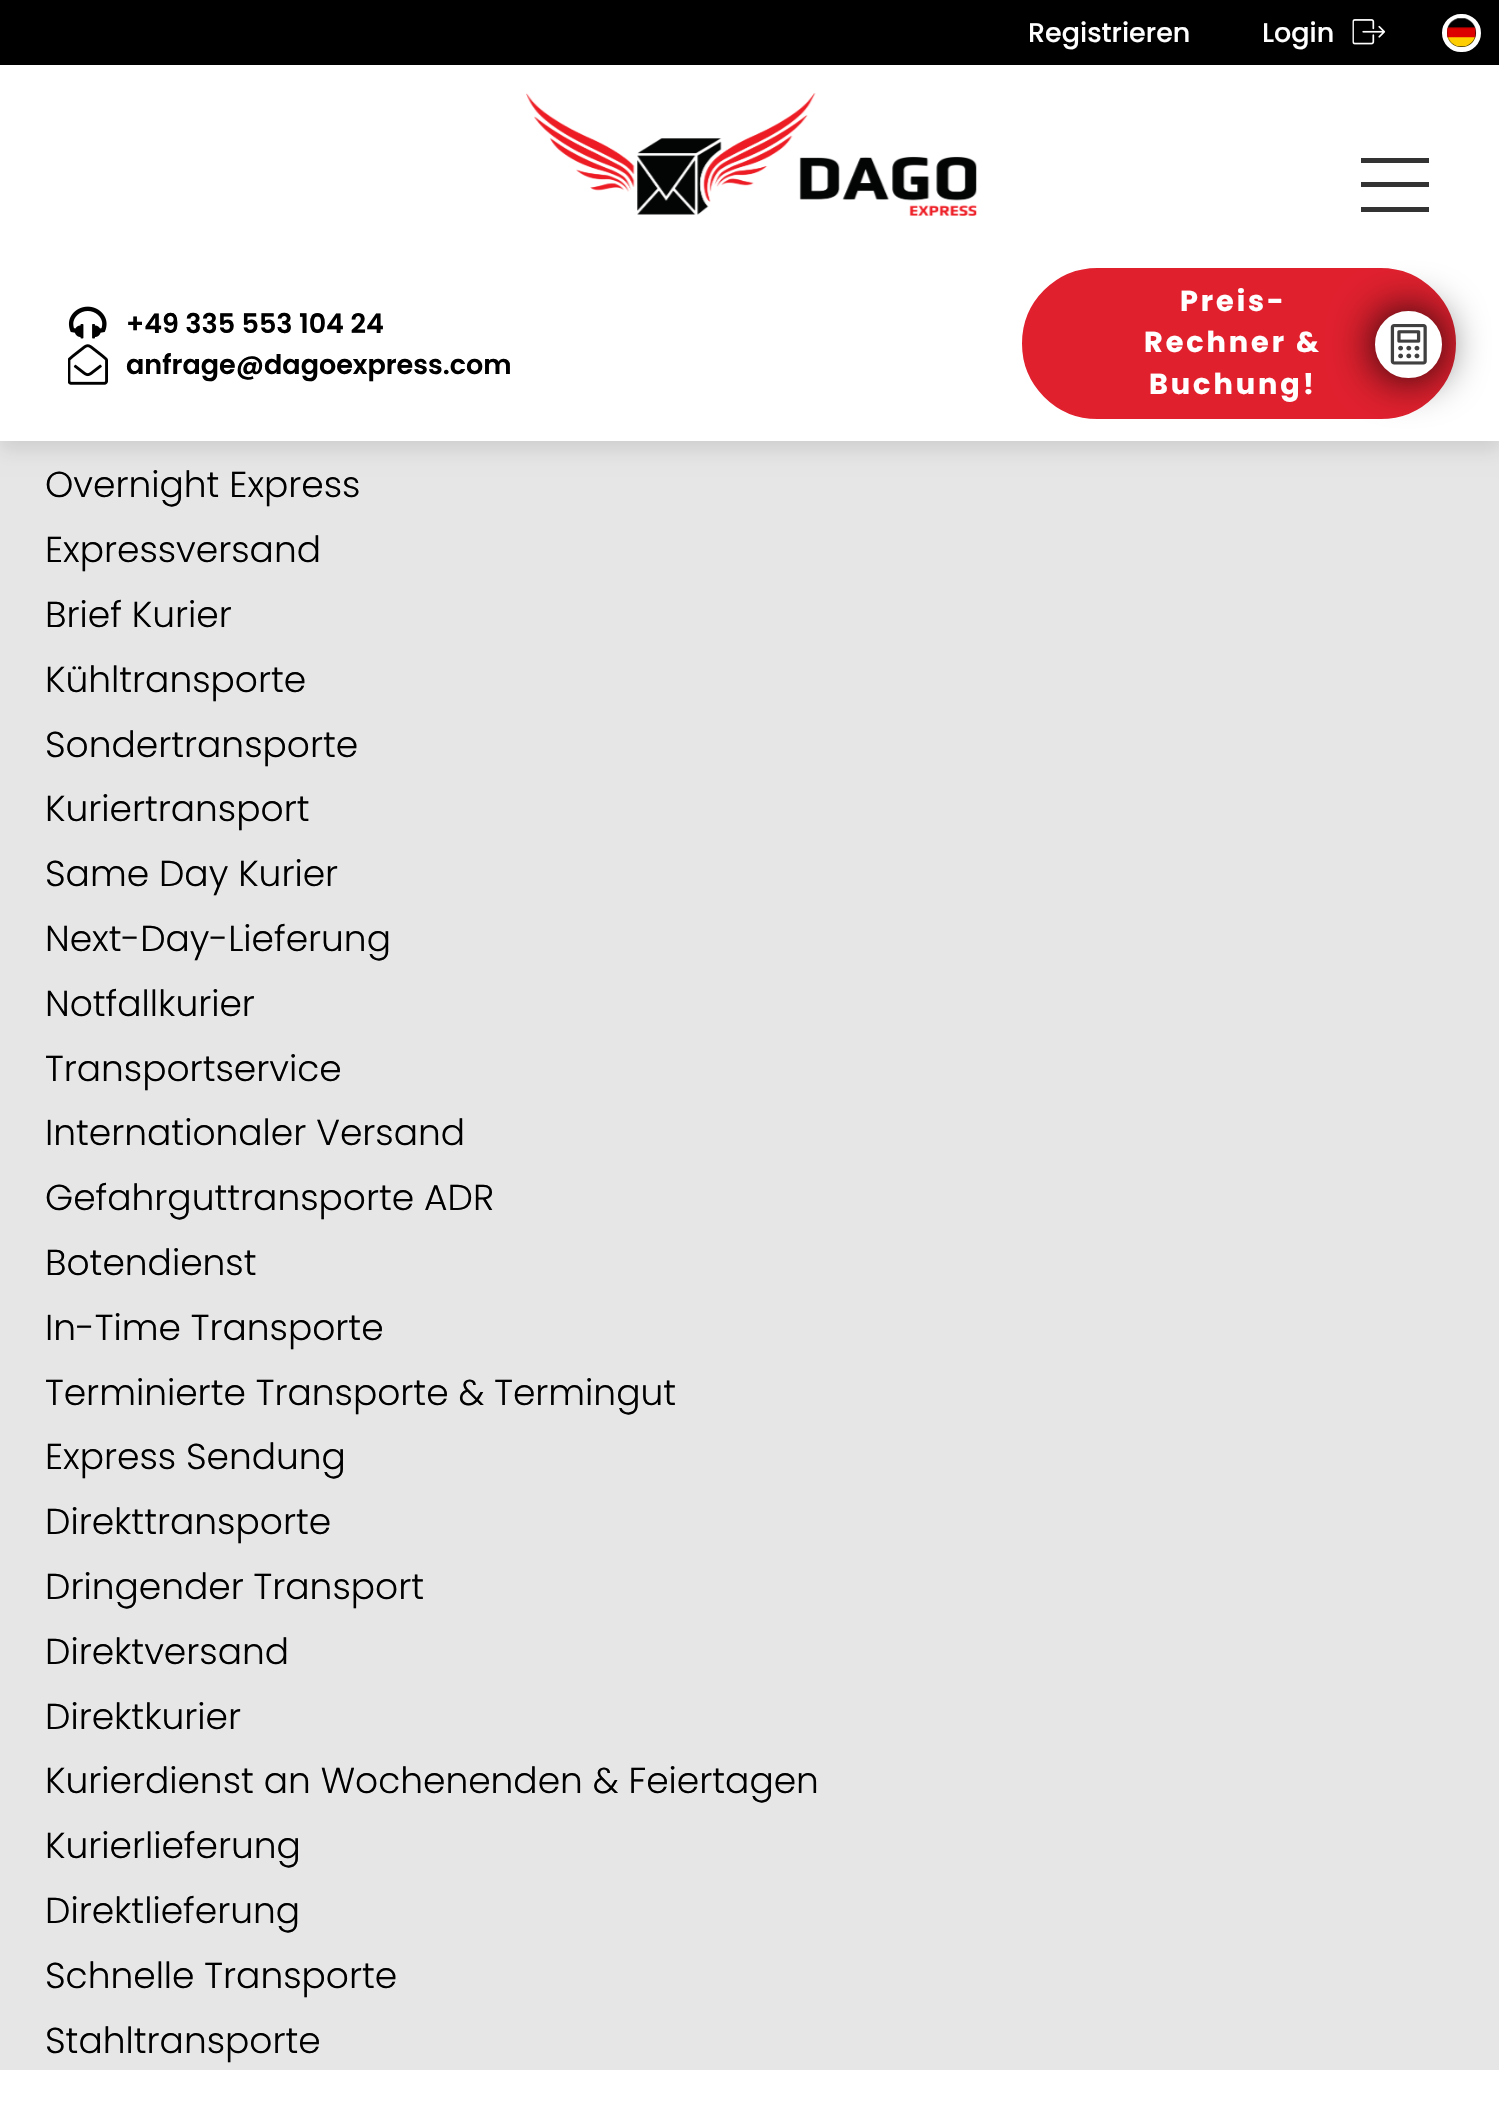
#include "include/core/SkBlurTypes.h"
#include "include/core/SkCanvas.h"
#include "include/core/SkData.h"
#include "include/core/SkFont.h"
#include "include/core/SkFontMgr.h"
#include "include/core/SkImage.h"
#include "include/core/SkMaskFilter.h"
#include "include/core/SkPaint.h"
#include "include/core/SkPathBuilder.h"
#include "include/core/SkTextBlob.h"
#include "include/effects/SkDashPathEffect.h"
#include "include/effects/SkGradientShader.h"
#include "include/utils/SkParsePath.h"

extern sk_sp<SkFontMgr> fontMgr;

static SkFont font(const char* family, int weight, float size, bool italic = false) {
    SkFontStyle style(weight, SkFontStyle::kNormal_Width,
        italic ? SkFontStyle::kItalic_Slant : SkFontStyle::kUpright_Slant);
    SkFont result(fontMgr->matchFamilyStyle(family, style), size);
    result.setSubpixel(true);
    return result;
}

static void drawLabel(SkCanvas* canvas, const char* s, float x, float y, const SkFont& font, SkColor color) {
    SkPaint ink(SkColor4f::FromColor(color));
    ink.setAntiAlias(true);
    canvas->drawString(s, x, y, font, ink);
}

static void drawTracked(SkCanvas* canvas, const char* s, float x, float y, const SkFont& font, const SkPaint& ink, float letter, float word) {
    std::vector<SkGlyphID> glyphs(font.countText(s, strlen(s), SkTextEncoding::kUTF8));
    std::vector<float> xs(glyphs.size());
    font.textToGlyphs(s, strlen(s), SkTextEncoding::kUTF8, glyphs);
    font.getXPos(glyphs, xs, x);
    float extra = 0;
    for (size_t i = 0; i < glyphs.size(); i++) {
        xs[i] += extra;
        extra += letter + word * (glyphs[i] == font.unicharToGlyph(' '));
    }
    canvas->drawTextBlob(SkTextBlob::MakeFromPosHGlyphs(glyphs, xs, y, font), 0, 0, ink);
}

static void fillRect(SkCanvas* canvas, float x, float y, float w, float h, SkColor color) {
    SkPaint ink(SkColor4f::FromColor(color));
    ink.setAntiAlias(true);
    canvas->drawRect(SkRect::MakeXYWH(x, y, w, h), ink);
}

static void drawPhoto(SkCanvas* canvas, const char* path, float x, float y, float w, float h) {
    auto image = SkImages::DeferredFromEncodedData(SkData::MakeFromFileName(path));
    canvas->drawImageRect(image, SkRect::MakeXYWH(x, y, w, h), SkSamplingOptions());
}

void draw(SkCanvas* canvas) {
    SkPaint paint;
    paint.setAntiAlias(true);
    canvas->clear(0xFFE6E6E6);
    paint.setColor(0x1A000000);
    paint.setMaskFilter(SkMaskFilter::MakeBlur(kNormal_SkBlurStyle, 9));
    canvas->drawRect(SkRect::MakeXYWH(0, 9, 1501, 441), paint);
    paint.setMaskFilter(nullptr);
    fillRect(canvas, 0, 65, 1499, 376, 0xFFFFFFFF);
    fillRect(canvas, 0, 0, 1499, 65, 0xFF000000);
    SkFont font1 = font("Poppins", 500, 27);
    drawLabel(canvas, "Registrieren", 1028, 42, font1, 0xFFFFFFFF);
    drawLabel(canvas, "Login", 1262, 42, font1, 0xFFFFFFFF);
    drawPhoto(canvas, "assets/img1.png", 1352, 19, 34, 26);
    paint.setStroke(true);
    paint.setStrokeWidth(5);
    paint.setColor(0xFFFFFFFF);
    canvas->drawRoundRect(SkRect::MakeXYWH(1444.5f, 16.5f, 34, 33), 16.5f, 16.5f, paint);
    drawPhoto(canvas, "assets/img2.png", 1447, 18, 30, 30);
    fillRect(canvas, 1361, 158, 68, 5, 0xFF333333);
    fillRect(canvas, 1361, 182, 68, 5, 0xFF333333);
    fillRect(canvas, 1361, 207, 68, 5, 0xFF333333);
    drawPhoto(canvas, "assets/img3.png", 526, 93, 451, 123);
    drawPhoto(canvas, "assets/img4.png", 68, 306, 39, 33);
    SkFont font2 = font("Poppins", 600, 27);
    drawLabel(canvas, "+49 335 553 104 24", 126, 333, font2, 0xFF000000);
    drawPhoto(canvas, "assets/img5.png", 68, 344, 40, 41);
    drawLabel(canvas, "anfrage@dagoexpress.com", 126, 374, font2, 0xFF000000);
    paint.setStroke(false);
    paint.setColor(0xFFE1202E);
    canvas->drawRoundRect(SkRect::MakeXYWH(1023, 269, 432, 149), 74.5f, 74.5f, paint);
    paint.setStroke(true);
    paint.setStrokeWidth(2);
    canvas->drawRoundRect(SkRect::MakeXYWH(1023, 269, 432, 149), 74.5f, 74.5f, paint);
    SkFont font3 = font("Poppins", 700, 28.75f);
    paint.setStroke(false);
    paint.setColor(0xFFFFFFFF);
    drawTracked(canvas, "Preis-", 1180, 311, font3, paint, 2.9f, 0);
    drawTracked(canvas, "Rechner &", 1144, 352, font3, paint, 2.9f, 0);
    drawTracked(canvas, "Buchung!", 1149, 394, font3, paint, 2.9f, 0);
    paint.setColor(0xFF000000);
    paint.setMaskFilter(SkMaskFilter::MakeBlur(kNormal_SkBlurStyle, 22.5f));
    canvas->drawRoundRect(SkRect::MakeXYWH(1375, 311, 67, 67), 33.5f, 33.5f, paint);
    paint.setMaskFilter(nullptr);
    paint.setColor(0xFFFFFFFF);
    canvas->drawCircle(1408.5f, 344.5f, 32.5f, paint);
    paint.setStroke(true);
    canvas->drawCircle(1408.5f, 344.5f, 32.5f, paint);
    drawPhoto(canvas, "assets/img6.png", 1390, 324, 37, 41);
    SkFont font4 = font("Poppins", 300, 36);
    drawLabel(canvas, "Overnight Express", 45, 497, font4, 0xFF000000);
    drawLabel(canvas, "Expressversand", 45, 562, font4, 0xFF000000);
    drawLabel(canvas, "Brief Kurier", 45, 627, font4, 0xFF000000);
    drawLabel(canvas, "Kühltransporte", 45, 692, font4, 0xFF000000);
    drawLabel(canvas, "Sondertransporte", 45, 757, font4, 0xFF000000);
    drawLabel(canvas, "Kuriertransport", 45, 821, font4, 0xFF000000);
    drawLabel(canvas, "Same Day Kurier", 45, 886, font4, 0xFF000000);
    drawLabel(canvas, "Next-Day-Lieferung", 45, 951, font4, 0xFF000000);
    drawLabel(canvas, "Notfallkurier", 45, 1016, font4, 0xFF000000);
    drawLabel(canvas, "Transportservice", 45, 1081, font4, 0xFF000000);
    drawLabel(canvas, "Internationaler Versand", 45, 1145, font4, 0xFF000000);
    drawLabel(canvas, "Gefahrguttransporte ADR", 45, 1210, font4, 0xFF000000);
    drawLabel(canvas, "Botendienst", 45, 1275, font4, 0xFF000000);
    drawLabel(canvas, "In-Time Transporte", 45, 1340, font4, 0xFF000000);
    drawLabel(canvas, "Terminierte Transporte & Termingut", 45, 1405, font4, 0xFF000000);
    drawLabel(canvas, "Express Sendung", 45, 1469, font4, 0xFF000000);
    drawLabel(canvas, "Direkttransporte", 45, 1534, font4, 0xFF000000);
    drawLabel(canvas, "Dringender Transport", 45, 1599, font4, 0xFF000000);
    drawLabel(canvas, "Direktversand", 45, 1664, font4, 0xFF000000);
    drawLabel(canvas, "Direktkurier", 45, 1729, font4, 0xFF000000);
    drawLabel(canvas, "Kurierdienst an Wochenenden & Feiertagen", 45, 1793, font4, 0xFF000000);
    drawLabel(canvas, "Kurierlieferung", 45, 1858, font4, 0xFF000000);
    drawLabel(canvas, "Direktlieferung", 45, 1923, font4, 0xFF000000);
    drawLabel(canvas, "Schnelle Transporte", 45, 1988, font4, 0xFF000000);
    drawLabel(canvas, "Stahltransporte", 45, 2053, font4, 0xFF000000);
    fillRect(canvas, 0, 2070, 1499, 45, 0xFFFFFFFF);
}
